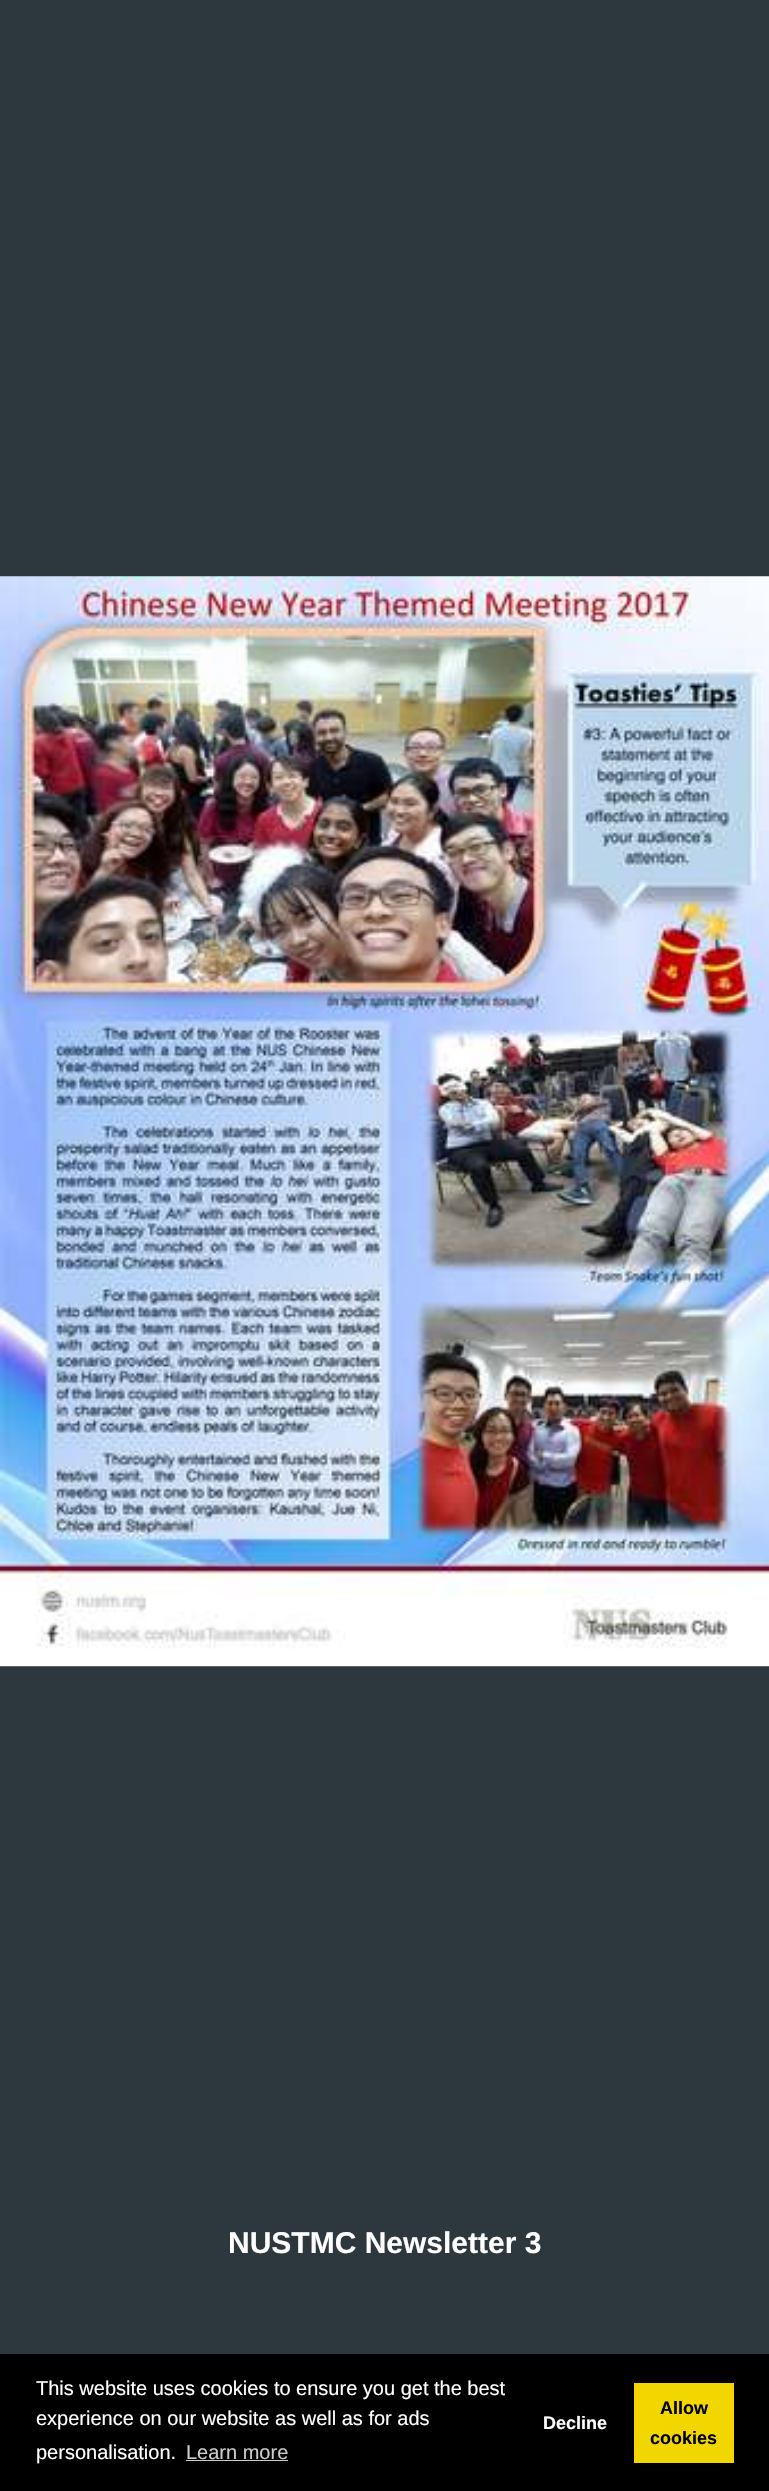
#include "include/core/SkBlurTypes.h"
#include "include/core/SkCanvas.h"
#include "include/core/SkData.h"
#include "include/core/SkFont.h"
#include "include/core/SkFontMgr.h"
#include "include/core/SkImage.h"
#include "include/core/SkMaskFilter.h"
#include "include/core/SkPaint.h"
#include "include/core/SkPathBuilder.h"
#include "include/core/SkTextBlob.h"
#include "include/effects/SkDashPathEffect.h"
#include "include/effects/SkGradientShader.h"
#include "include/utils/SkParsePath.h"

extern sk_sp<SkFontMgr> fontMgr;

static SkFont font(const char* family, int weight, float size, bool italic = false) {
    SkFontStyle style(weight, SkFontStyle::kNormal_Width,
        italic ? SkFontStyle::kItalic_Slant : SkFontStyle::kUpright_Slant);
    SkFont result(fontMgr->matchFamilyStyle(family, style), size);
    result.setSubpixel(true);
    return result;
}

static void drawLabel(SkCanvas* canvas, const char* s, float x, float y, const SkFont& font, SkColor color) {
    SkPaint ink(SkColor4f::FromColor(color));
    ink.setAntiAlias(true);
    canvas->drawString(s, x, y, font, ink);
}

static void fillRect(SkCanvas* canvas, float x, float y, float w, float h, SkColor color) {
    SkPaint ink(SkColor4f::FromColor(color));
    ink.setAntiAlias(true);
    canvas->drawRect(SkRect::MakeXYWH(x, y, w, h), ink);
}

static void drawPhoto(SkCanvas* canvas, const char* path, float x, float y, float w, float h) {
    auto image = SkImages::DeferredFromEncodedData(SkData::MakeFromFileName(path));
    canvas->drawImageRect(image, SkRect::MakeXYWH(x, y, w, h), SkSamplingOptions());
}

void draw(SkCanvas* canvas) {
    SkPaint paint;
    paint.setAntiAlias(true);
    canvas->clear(0xFF2D373E);
    drawPhoto(canvas, "assets/img1.png", 0, 576, 769, 1091);
    SkFont font1 = font("Liberation Sans", 700, 30);
    drawLabel(canvas, "NUSTMC Newsletter 3", 228, 2253, font1, 0xFFFFFFFF);
    fillRect(canvas, 0, 2354, 769, 137, 0xFF000000);
    SkFont font2 = font("Liberation Sans", 400, 20);
    drawLabel(canvas, "This website uses cookies to ensure you get the best", 36, 2395, font2, 0xFFFFFFFF);
    drawLabel(canvas, "experience on our website as well as for ads", 36, 2425, font2, 0xFFFFFFFF);
    drawLabel(canvas, "personalisation.", 36, 2459, font2, 0xFFFFFFFF);
    drawLabel(canvas, "Learn more", 186, 2459, font2, 0xFFCCCCCC);
    fillRect(canvas, 186, 2460, 102, 1, 0xFFCCCCCC);
    SkFont font3 = font("Liberation Sans", 700, 18);
    drawLabel(canvas, "Decline", 543, 2429, font3, 0xFFFFFFFF);
    fillRect(canvas, 634, 2383, 100, 80, 0xFFF1D600);
    drawLabel(canvas, "Allow", 660, 2414, font3, 0xFF000000);
    drawLabel(canvas, "cookies", 650, 2444, font3, 0xFF000000);
}
